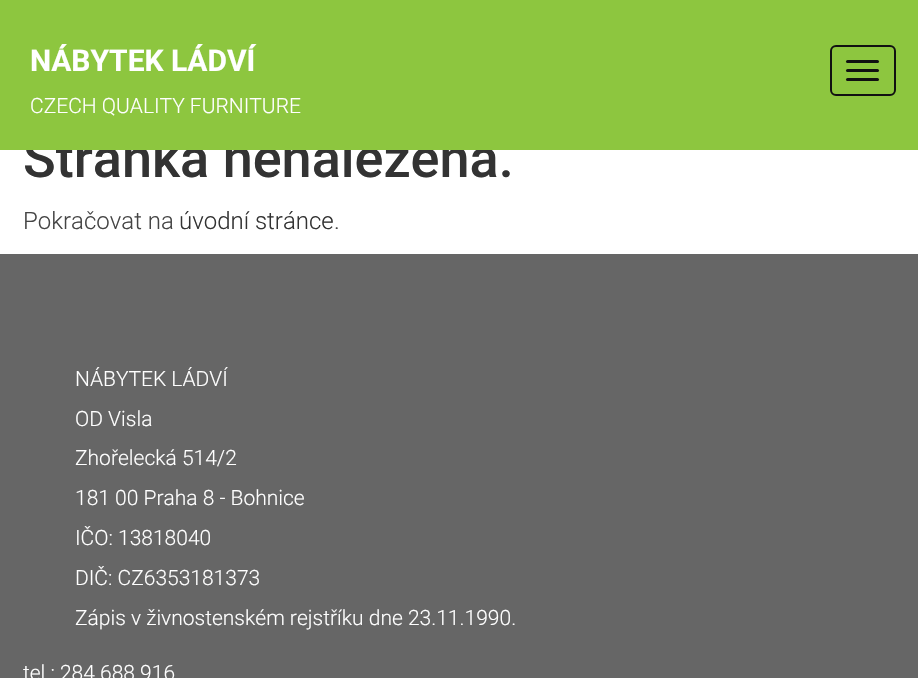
#include "include/core/SkBlurTypes.h"
#include "include/core/SkCanvas.h"
#include "include/core/SkData.h"
#include "include/core/SkFont.h"
#include "include/core/SkFontMgr.h"
#include "include/core/SkImage.h"
#include "include/core/SkMaskFilter.h"
#include "include/core/SkPaint.h"
#include "include/core/SkPathBuilder.h"
#include "include/core/SkTextBlob.h"
#include "include/effects/SkDashPathEffect.h"
#include "include/effects/SkGradientShader.h"
#include "include/utils/SkParsePath.h"

extern sk_sp<SkFontMgr> fontMgr;

static SkFont font(const char* family, int weight, float size, bool italic = false) {
    SkFontStyle style(weight, SkFontStyle::kNormal_Width,
        italic ? SkFontStyle::kItalic_Slant : SkFontStyle::kUpright_Slant);
    SkFont result(fontMgr->matchFamilyStyle(family, style), size);
    result.setSubpixel(true);
    return result;
}

static void drawLabel(SkCanvas* canvas, const char* s, float x, float y, const SkFont& font, SkColor color) {
    SkPaint ink(SkColor4f::FromColor(color));
    ink.setAntiAlias(true);
    canvas->drawString(s, x, y, font, ink);
}

static void fillRect(SkCanvas* canvas, float x, float y, float w, float h, SkColor color) {
    SkPaint ink(SkColor4f::FromColor(color));
    ink.setAntiAlias(true);
    canvas->drawRect(SkRect::MakeXYWH(x, y, w, h), ink);
}

static void fillRRect(SkCanvas* canvas, float x, float y, float w, float h, float radius, SkColor color) {
    SkPaint ink(SkColor4f::FromColor(color));
    ink.setAntiAlias(true);
    canvas->drawRoundRect(SkRect::MakeXYWH(x, y, w, h), radius, radius, ink);
}

void draw(SkCanvas* canvas) {
    SkPaint paint;
    paint.setAntiAlias(true);
    canvas->clear(0xFFFFFFFF);
    SkFont font1 = font("Roboto", 500, 54);
    drawLabel(canvas, "Stránka nenalezena.", 23, 177, font1, 0xFF333333);
    fillRect(canvas, 0, 0, 918, 150, 0xFF8DC63F);
    SkFont font2 = font("Roboto", 700, 30);
    drawLabel(canvas, "NÁBYTEK LÁDVÍ", 30, 71, font2, 0xFFFFFFFF);
    SkFont font3 = font("Roboto", 300, 21);
    drawLabel(canvas, "CZECH QUALITY FURNITURE", 30, 113, font3, 0xFFFFFFFF);
    paint.setStroke(true);
    paint.setStrokeWidth(2);
    paint.setColor(0xFF111111);
    canvas->drawRoundRect(SkRect::MakeXYWH(831, 46, 64, 49), 5, 5, paint);
    fillRRect(canvas, 846, 60, 33, 3, 1.5f, 0xFF111111);
    fillRRect(canvas, 846, 69, 33, 3, 1.5f, 0xFF111111);
    fillRRect(canvas, 846, 78, 33, 3, 1.5f, 0xFF111111);
    SkFont font4 = font("Roboto", 300, 24);
    drawLabel(canvas, "Pokračovat na", 23, 229, font4, 0xFF454545);
    drawLabel(canvas, "úvodní stránce", 179, 229, font4, 0xFF333333);
    drawLabel(canvas, ".", 334, 229, font4, 0xFF454545);
    fillRect(canvas, 0, 254, 918, 424, 0xFF666666);
    drawLabel(canvas, "NÁBYTEK LÁDVÍ", 75, 386, font3, 0xFFFFFFFF);
    drawLabel(canvas, "OD Visla", 75, 426, font3, 0xFFFFFFFF);
    drawLabel(canvas, "Zhořelecká 514/2", 75, 465, font3, 0xFFFFFFFF);
    drawLabel(canvas, "181 00 Praha 8 - Bohnice", 75, 505, font3, 0xFFFFFFFF);
    drawLabel(canvas, "IČO: 13818040", 75, 545, font3, 0xFFFFFFFF);
    drawLabel(canvas, "DIČ: CZ6353181373", 75, 585, font3, 0xFFFFFFFF);
    drawLabel(canvas, "Zápis v živnostenském rejstříku dne 23.11.1990.", 75, 625, font3, 0xFFFFFFFF);
    drawLabel(canvas, "tel : 284 688 916", 23, 680, font3, 0xFFFFFFFF);
}
